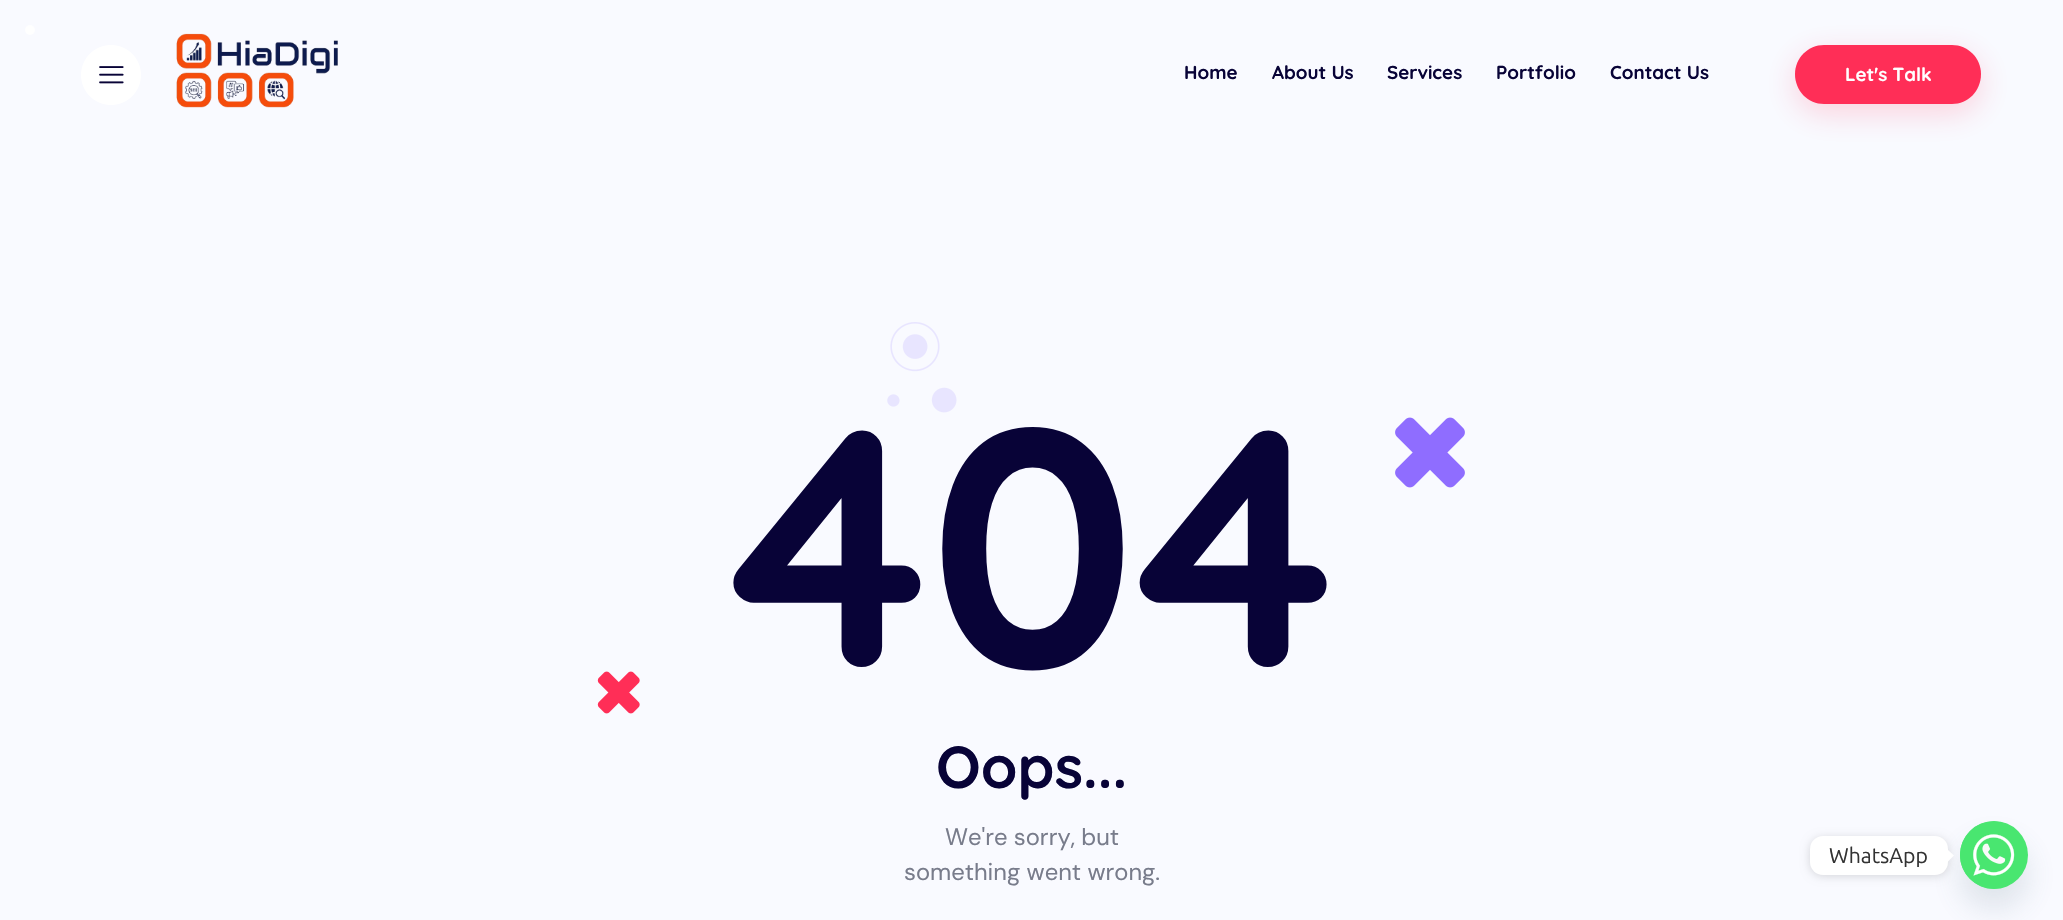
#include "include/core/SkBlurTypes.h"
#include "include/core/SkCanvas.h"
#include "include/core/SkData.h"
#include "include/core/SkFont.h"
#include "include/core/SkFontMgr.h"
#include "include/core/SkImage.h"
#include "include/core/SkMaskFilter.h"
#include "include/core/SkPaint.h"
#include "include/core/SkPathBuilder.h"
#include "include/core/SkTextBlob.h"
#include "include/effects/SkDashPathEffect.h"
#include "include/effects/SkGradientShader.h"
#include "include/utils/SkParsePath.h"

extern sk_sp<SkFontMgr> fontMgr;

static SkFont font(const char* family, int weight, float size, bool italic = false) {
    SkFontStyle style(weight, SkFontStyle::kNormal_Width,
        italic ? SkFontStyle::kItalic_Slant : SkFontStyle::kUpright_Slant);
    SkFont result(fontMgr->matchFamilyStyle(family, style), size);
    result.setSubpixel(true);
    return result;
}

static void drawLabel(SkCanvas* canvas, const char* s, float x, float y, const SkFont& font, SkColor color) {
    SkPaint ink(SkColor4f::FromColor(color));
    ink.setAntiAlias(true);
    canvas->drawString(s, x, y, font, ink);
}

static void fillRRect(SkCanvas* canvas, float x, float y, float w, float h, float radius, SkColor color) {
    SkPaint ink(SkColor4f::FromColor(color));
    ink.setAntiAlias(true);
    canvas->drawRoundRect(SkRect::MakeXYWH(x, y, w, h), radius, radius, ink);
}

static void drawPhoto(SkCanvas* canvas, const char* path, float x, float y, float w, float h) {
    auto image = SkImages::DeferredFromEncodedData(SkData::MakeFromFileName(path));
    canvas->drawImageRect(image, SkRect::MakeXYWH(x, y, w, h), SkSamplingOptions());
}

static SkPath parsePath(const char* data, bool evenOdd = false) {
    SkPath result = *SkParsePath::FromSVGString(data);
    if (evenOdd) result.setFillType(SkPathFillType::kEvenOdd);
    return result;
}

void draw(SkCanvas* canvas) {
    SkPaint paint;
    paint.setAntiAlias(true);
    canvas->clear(0xFFF9FAFF);
    paint.setColor(0xFFFFFFFF);
    canvas->drawCircle(30, 30, 5, paint);
    drawPhoto(canvas, "assets/img1.png", 81, 45, 60, 60);
    drawPhoto(canvas, "assets/img2.png", 176, 33, 162, 75);
    SkFont font1 = font("Quicksand", 700, 18.75f);
    drawLabel(canvas, "Home", 1184, 79, font1, 0xFF080337);
    drawLabel(canvas, "About Us", 1272, 79, font1, 0xFF080337);
    drawLabel(canvas, "Services", 1387, 79, font1, 0xFF080337);
    drawLabel(canvas, "Portfolio", 1496, 79, font1, 0xFF080337);
    drawLabel(canvas, "Contact Us", 1610, 79, font1, 0xFF080337);
    paint.setColor(0x33FF2E57);
    paint.setMaskFilter(SkMaskFilter::MakeBlur(kNormal_SkBlurStyle, 15.5f));
    canvas->drawRoundRect(SkRect::MakeXYWH(1795, 54, 186, 59), 29.5f, 29.5f, paint);
    paint.setMaskFilter(nullptr);
    paint.setColor(0xFFFF2E57);
    canvas->drawPath(parsePath("M1824 45C1808 45 1795 58 1795 74C1795 91 1808 104 1824 104H1952C1968 104 1981 91 1981 74C1981 58 1968 45 1952 45Z"), paint);
    drawLabel(canvas, "Let's Talk", 1845, 81, font1, 0xFFFFFFFF);
    drawPhoto(canvas, "assets/img3.png", 887, 322, 70, 91);
    drawPhoto(canvas, "assets/img4.png", 1395, 417, 70, 71);
    drawPhoto(canvas, "assets/img5.png", 597, 671, 43, 43);
    SkFont font2 = font("Quicksand", 700, 338);
    drawLabel(canvas, "404", 730, 667, font2, 0xFF080337);
    SkFont font3 = font("Quicksand", 700, 59);
    drawLabel(canvas, "Oops...", 936, 788, font3, 0xFF080337);
    SkFont font4 = font("DM Sans", 400, 23.75f);
    drawLabel(canvas, "We're sorry, but", 945, 845, font4, 0xFF787C8B);
    drawLabel(canvas, "something went wrong.", 904, 880, font4, 0xFF787C8B);
    paint.setColor(0x2949687E);
    paint.setMaskFilter(SkMaskFilter::MakeBlur(kNormal_SkBlurStyle, 15));
    canvas->drawRoundRect(SkRect::MakeXYWH(1960, 841, 68, 68), 34, 34, paint);
    paint.setMaskFilter(nullptr);
    paint.setColor(0xFF49E670);
    canvas->drawCircle(1994, 855, 34, paint);
    drawPhoto(canvas, "assets/img6.png", 1960, 821, 55, 68);
    paint.setColor(0x26000000);
    paint.setMaskFilter(SkMaskFilter::MakeBlur(kNormal_SkBlurStyle, 5));
    canvas->drawRoundRect(SkRect::MakeXYWH(1810, 838, 138, 38), 13, 13, paint);
    paint.setMaskFilter(nullptr);
    fillRRect(canvas, 1810, 836, 138, 39, 13, 0xFFFFFFFF);
    SkFont font5 = font("Ubuntu", 400, 21.25f);
    drawLabel(canvas, "WhatsApp", 1829, 863, font5, 0xFF333333);
    paint.setColor(0xFFFFFFFF);
    canvas->drawPath(parsePath("M1947.5 862V849.5L1954 855.5Z"), paint);
}
